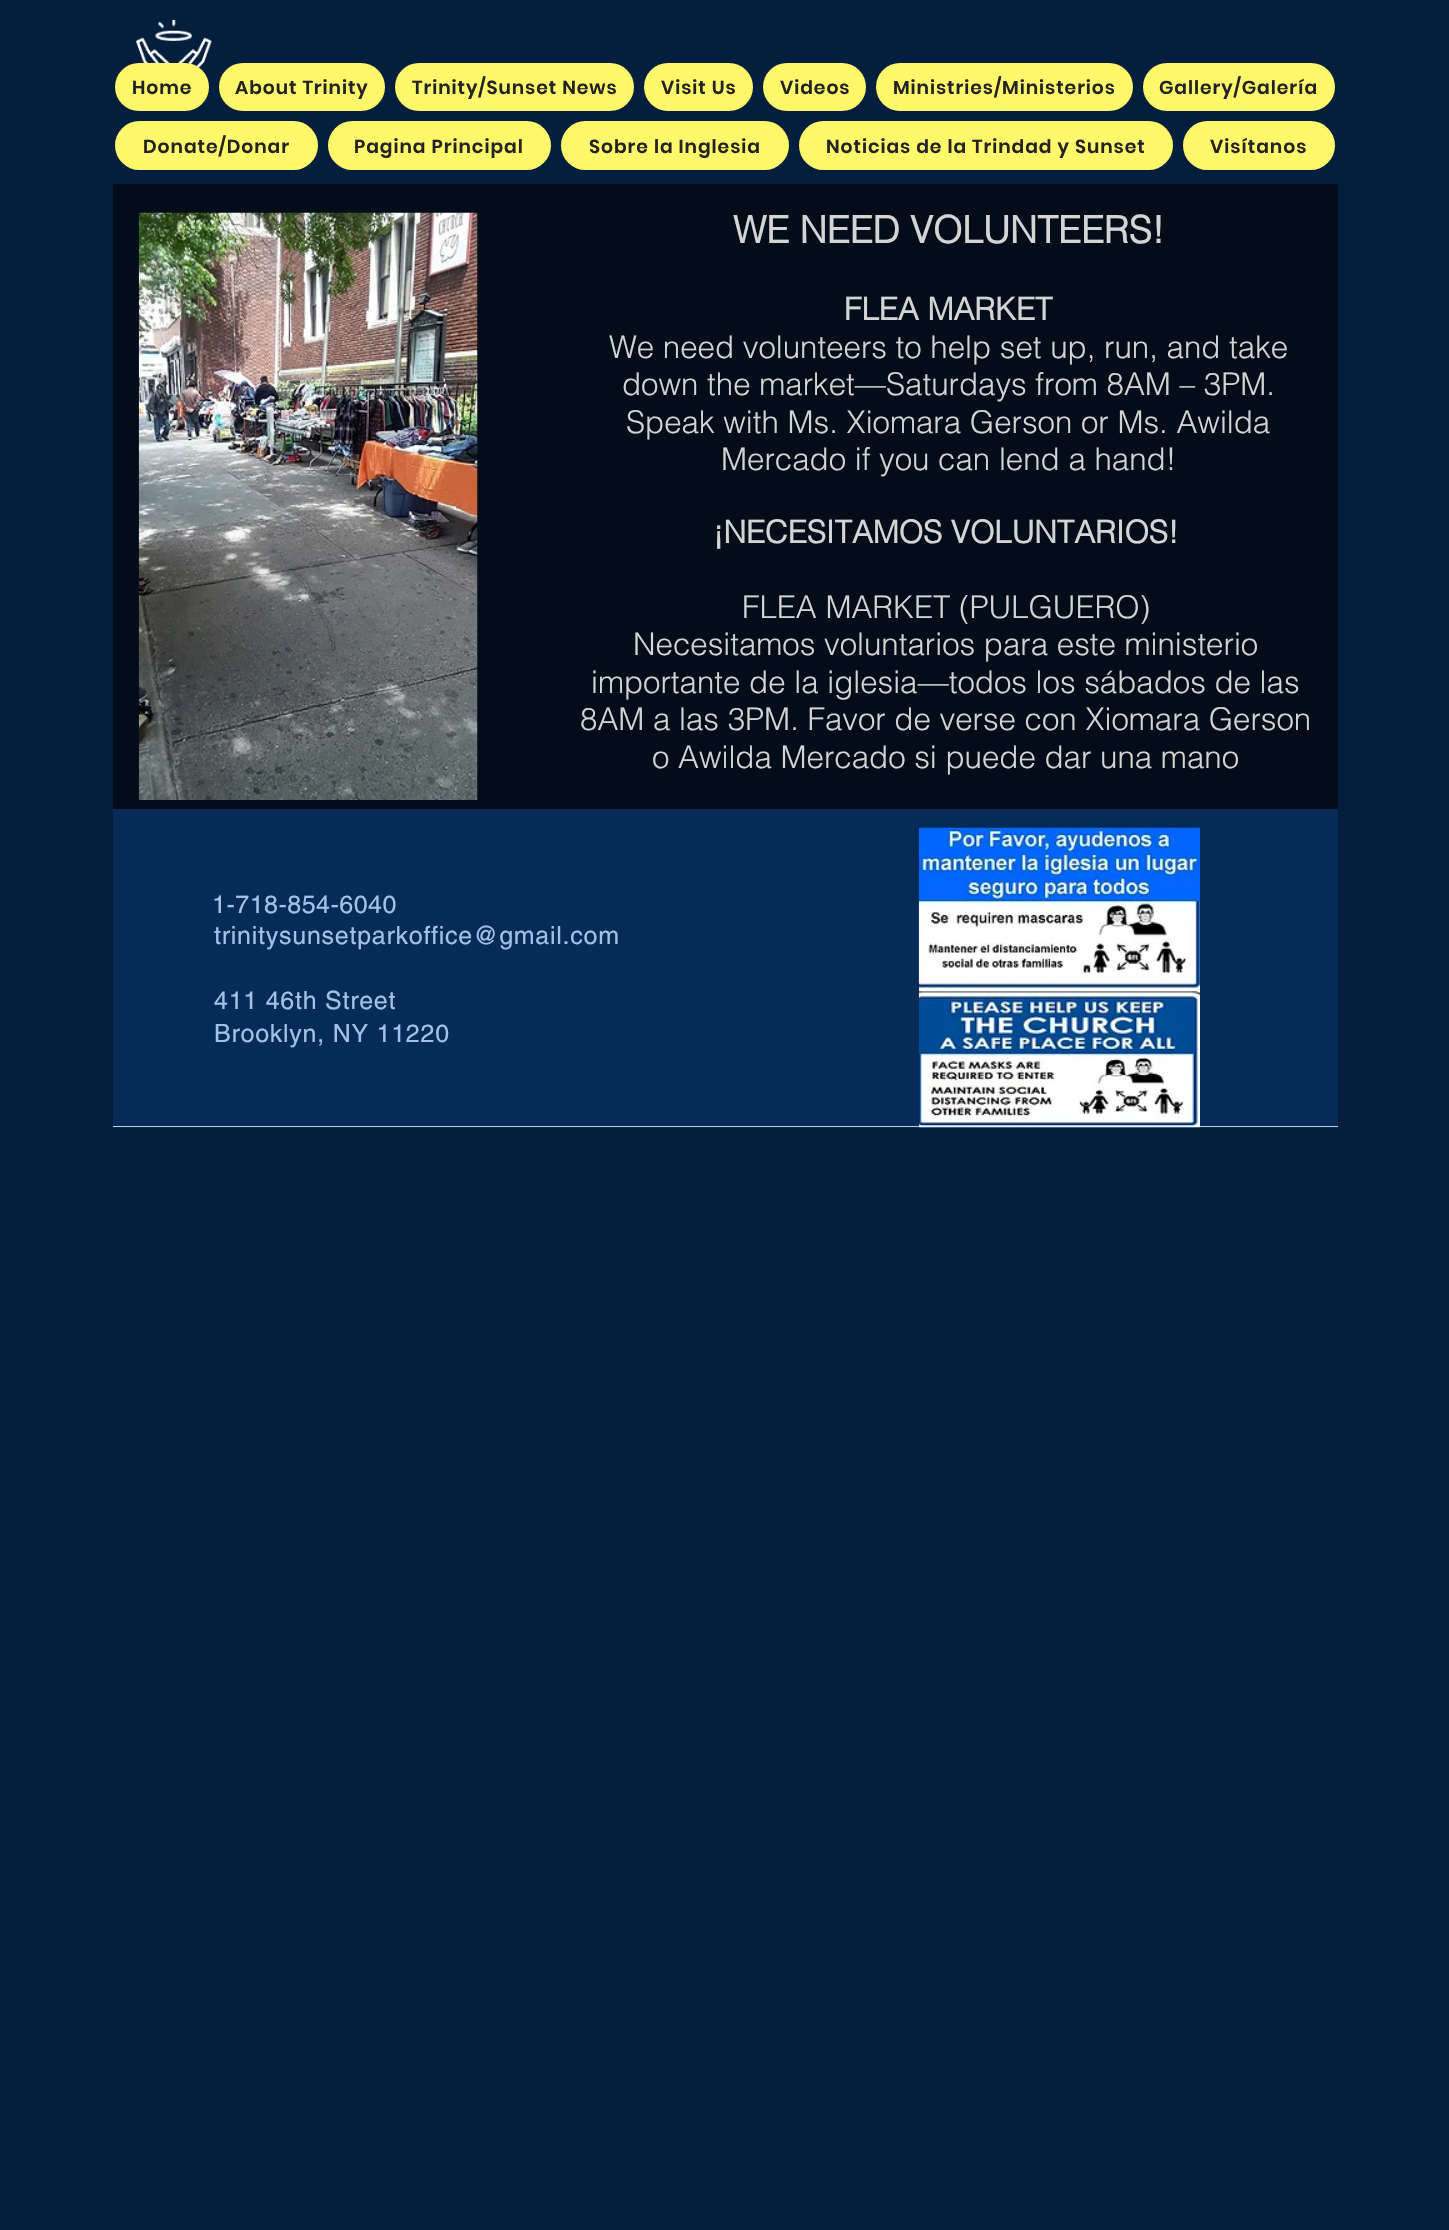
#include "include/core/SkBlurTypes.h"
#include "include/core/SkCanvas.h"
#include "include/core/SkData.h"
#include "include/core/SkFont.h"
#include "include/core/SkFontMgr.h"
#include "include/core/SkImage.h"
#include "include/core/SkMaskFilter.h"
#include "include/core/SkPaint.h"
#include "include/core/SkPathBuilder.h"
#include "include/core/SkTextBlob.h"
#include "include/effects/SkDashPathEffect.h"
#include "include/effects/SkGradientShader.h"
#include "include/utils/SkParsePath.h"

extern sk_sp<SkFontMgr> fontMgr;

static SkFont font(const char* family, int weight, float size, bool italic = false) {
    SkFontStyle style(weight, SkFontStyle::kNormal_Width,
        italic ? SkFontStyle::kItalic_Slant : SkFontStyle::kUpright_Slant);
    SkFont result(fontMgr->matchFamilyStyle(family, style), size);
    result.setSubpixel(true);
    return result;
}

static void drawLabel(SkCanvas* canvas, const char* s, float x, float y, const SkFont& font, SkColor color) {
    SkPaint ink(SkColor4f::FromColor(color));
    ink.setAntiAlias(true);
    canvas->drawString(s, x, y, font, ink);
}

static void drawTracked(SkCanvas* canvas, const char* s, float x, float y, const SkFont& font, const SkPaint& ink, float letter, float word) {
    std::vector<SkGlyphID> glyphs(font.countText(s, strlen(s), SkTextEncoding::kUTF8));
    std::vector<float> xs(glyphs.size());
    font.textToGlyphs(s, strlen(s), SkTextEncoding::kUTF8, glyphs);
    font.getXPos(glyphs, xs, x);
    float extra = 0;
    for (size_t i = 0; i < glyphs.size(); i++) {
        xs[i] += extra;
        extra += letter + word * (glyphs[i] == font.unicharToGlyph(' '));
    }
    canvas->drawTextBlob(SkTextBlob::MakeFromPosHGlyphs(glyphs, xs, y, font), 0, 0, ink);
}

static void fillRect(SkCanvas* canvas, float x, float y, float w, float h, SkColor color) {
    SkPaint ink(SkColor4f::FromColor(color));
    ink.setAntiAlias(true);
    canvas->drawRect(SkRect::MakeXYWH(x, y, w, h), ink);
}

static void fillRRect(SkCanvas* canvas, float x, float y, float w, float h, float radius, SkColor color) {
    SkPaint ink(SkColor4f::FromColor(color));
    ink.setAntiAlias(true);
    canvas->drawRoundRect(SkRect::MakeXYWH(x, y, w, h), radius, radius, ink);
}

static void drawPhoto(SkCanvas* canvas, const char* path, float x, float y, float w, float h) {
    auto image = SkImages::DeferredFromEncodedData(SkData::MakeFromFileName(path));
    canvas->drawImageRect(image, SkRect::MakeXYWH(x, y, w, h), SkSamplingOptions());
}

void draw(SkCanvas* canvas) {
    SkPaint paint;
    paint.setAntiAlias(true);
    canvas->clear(0xFF041F3E);
    drawPhoto(canvas, "assets/img1.png", 136, 20, 76, 48);
    fillRRect(canvas, 115, 63, 94, 48, 24, 0xFFFFF86B);
    SkFont font1 = font("Poppins", 600, 18.75f);
    paint.setColor(0xFF242323);
    drawTracked(canvas, "Home", 132, 94, font1, paint, 0.95f, 0);
    fillRRect(canvas, 219, 63, 166, 48, 24, 0xFFFFF86B);
    drawTracked(canvas, "About Trinity", 235, 94, font1, paint, 0.95f, 0);
    fillRRect(canvas, 395, 63, 239, 48, 24, 0xFFFFF86B);
    drawTracked(canvas, "Trinity/Sunset News", 412, 94, font1, paint, 0.95f, 0);
    fillRRect(canvas, 644, 63, 109, 48, 24, 0xFFFFF86B);
    drawTracked(canvas, "Visit Us", 661, 94, font1, paint, 0.95f, 0);
    fillRRect(canvas, 763, 63, 103, 48, 24, 0xFFFFF86B);
    drawTracked(canvas, "Videos", 780, 94, font1, paint, 0.95f, 0);
    fillRRect(canvas, 876, 63, 257, 48, 24, 0xFFFFF86B);
    drawTracked(canvas, "Ministries/Ministerios", 893, 94, font1, paint, 0.95f, 0);
    fillRRect(canvas, 1143, 63, 192, 48, 24, 0xFFFFF86B);
    drawTracked(canvas, "Gallery/Galería", 1159, 94, font1, paint, 0.95f, 0);
    fillRRect(canvas, 115, 121, 203, 49, 24.5f, 0xFFFFF86B);
    drawTracked(canvas, "Donate/Donar", 143, 153, font1, paint, 0.95f, 0);
    fillRRect(canvas, 328, 121, 223, 49, 24.5f, 0xFFFFF86B);
    drawTracked(canvas, "Pagina Principal", 354, 153, font1, paint, 0.95f, 0);
    fillRRect(canvas, 561, 121, 228, 49, 24.5f, 0xFFFFF86B);
    drawTracked(canvas, "Sobre la Inglesia", 589, 153, font1, paint, 0.95f, 0);
    fillRRect(canvas, 799, 121, 374, 49, 24.5f, 0xFFFFF86B);
    drawTracked(canvas, "Noticias de la Trindad y Sunset", 826, 153, font1, paint, 0.95f, 0);
    fillRRect(canvas, 1183, 121, 152, 49, 24.5f, 0xFFFFF86B);
    drawTracked(canvas, "Visítanos", 1210, 153, font1, paint, 0.95f, 0);
    fillRect(canvas, 113, 184, 1225, 625, 0xFF020D19);
    drawPhoto(canvas, "assets/img2.png", 138, 212, 340, 588);
    SkFont font2 = font("helvetica", 700, 37.5f);
    drawLabel(canvas, "WE NEED VOLUNTEERS!", 733, 243, font2, 0xFFD4D4D4);
    SkFont font3 = font("helvetica", 700, 31.25f);
    drawLabel(canvas, "FLEA MARKET", 844, 320, font3, 0xFFD4D4D4);
    SkFont font4 = font("helvetica", 300, 31.25f);
    drawLabel(canvas, "We need volunteers to help set up, run, and take", 609, 358, font4, 0xFFD4D4D4);
    drawLabel(canvas, "down the market—Saturdays from 8AM – 3PM.", 622, 395, font4, 0xFFD4D4D4);
    drawLabel(canvas, "Speak with Ms. Xiomara Gerson or Ms. Awilda", 626, 433, font4, 0xFFD4D4D4);
    drawLabel(canvas, "Mercado if you can lend a hand!", 721, 470, font4, 0xFFD4D4D4);
    drawLabel(canvas, "¡NECESITAMOS VOLUNTARIOS!", 713, 543, font3, 0xFFD4D4D4);
    drawLabel(canvas, "FLEA MARKET (PULGUERO)", 742, 618, font4, 0xFFD4D4D4);
    drawLabel(canvas, "Necesitamos voluntarios para este ministerio", 633, 655, font4, 0xFFD4D4D4);
    drawLabel(canvas, "importante de la iglesia—todos los sábados de las", 591, 693, font4, 0xFFD4D4D4);
    drawLabel(canvas, "8AM a las 3PM. Favor de verse con Xiomara Gerson", 580, 730, font4, 0xFFD4D4D4);
    drawLabel(canvas, "o Awilda Mercado si puede dar una mano", 652, 768, font4, 0xFFD4D4D4);
    fillRect(canvas, 113, 809, 1225, 319, 0xFF062B56);
    fillRect(canvas, 113, 1126, 1225, 1, 0xFFC1CAD5);
    SkFont font5 = font("helvetica", 400, 25);
    paint.setColor(0xFFA0C2E8);
    drawTracked(canvas, "1-718-854-6040", 212, 913, font5, paint, 0.5f, 0);
    drawTracked(canvas, "trinitysunsetparkoffice@gmail.com", 214, 944, font5, paint, 0.75f, 0);
    drawTracked(canvas, "411 46th Street", 214, 1009, font5, paint, 0.75f, 0);
    drawTracked(canvas, "Brooklyn, NY 11220", 214, 1042, font5, paint, 0.75f, 0);
    drawPhoto(canvas, "assets/img3.png", 918, 827, 282, 301);
}
